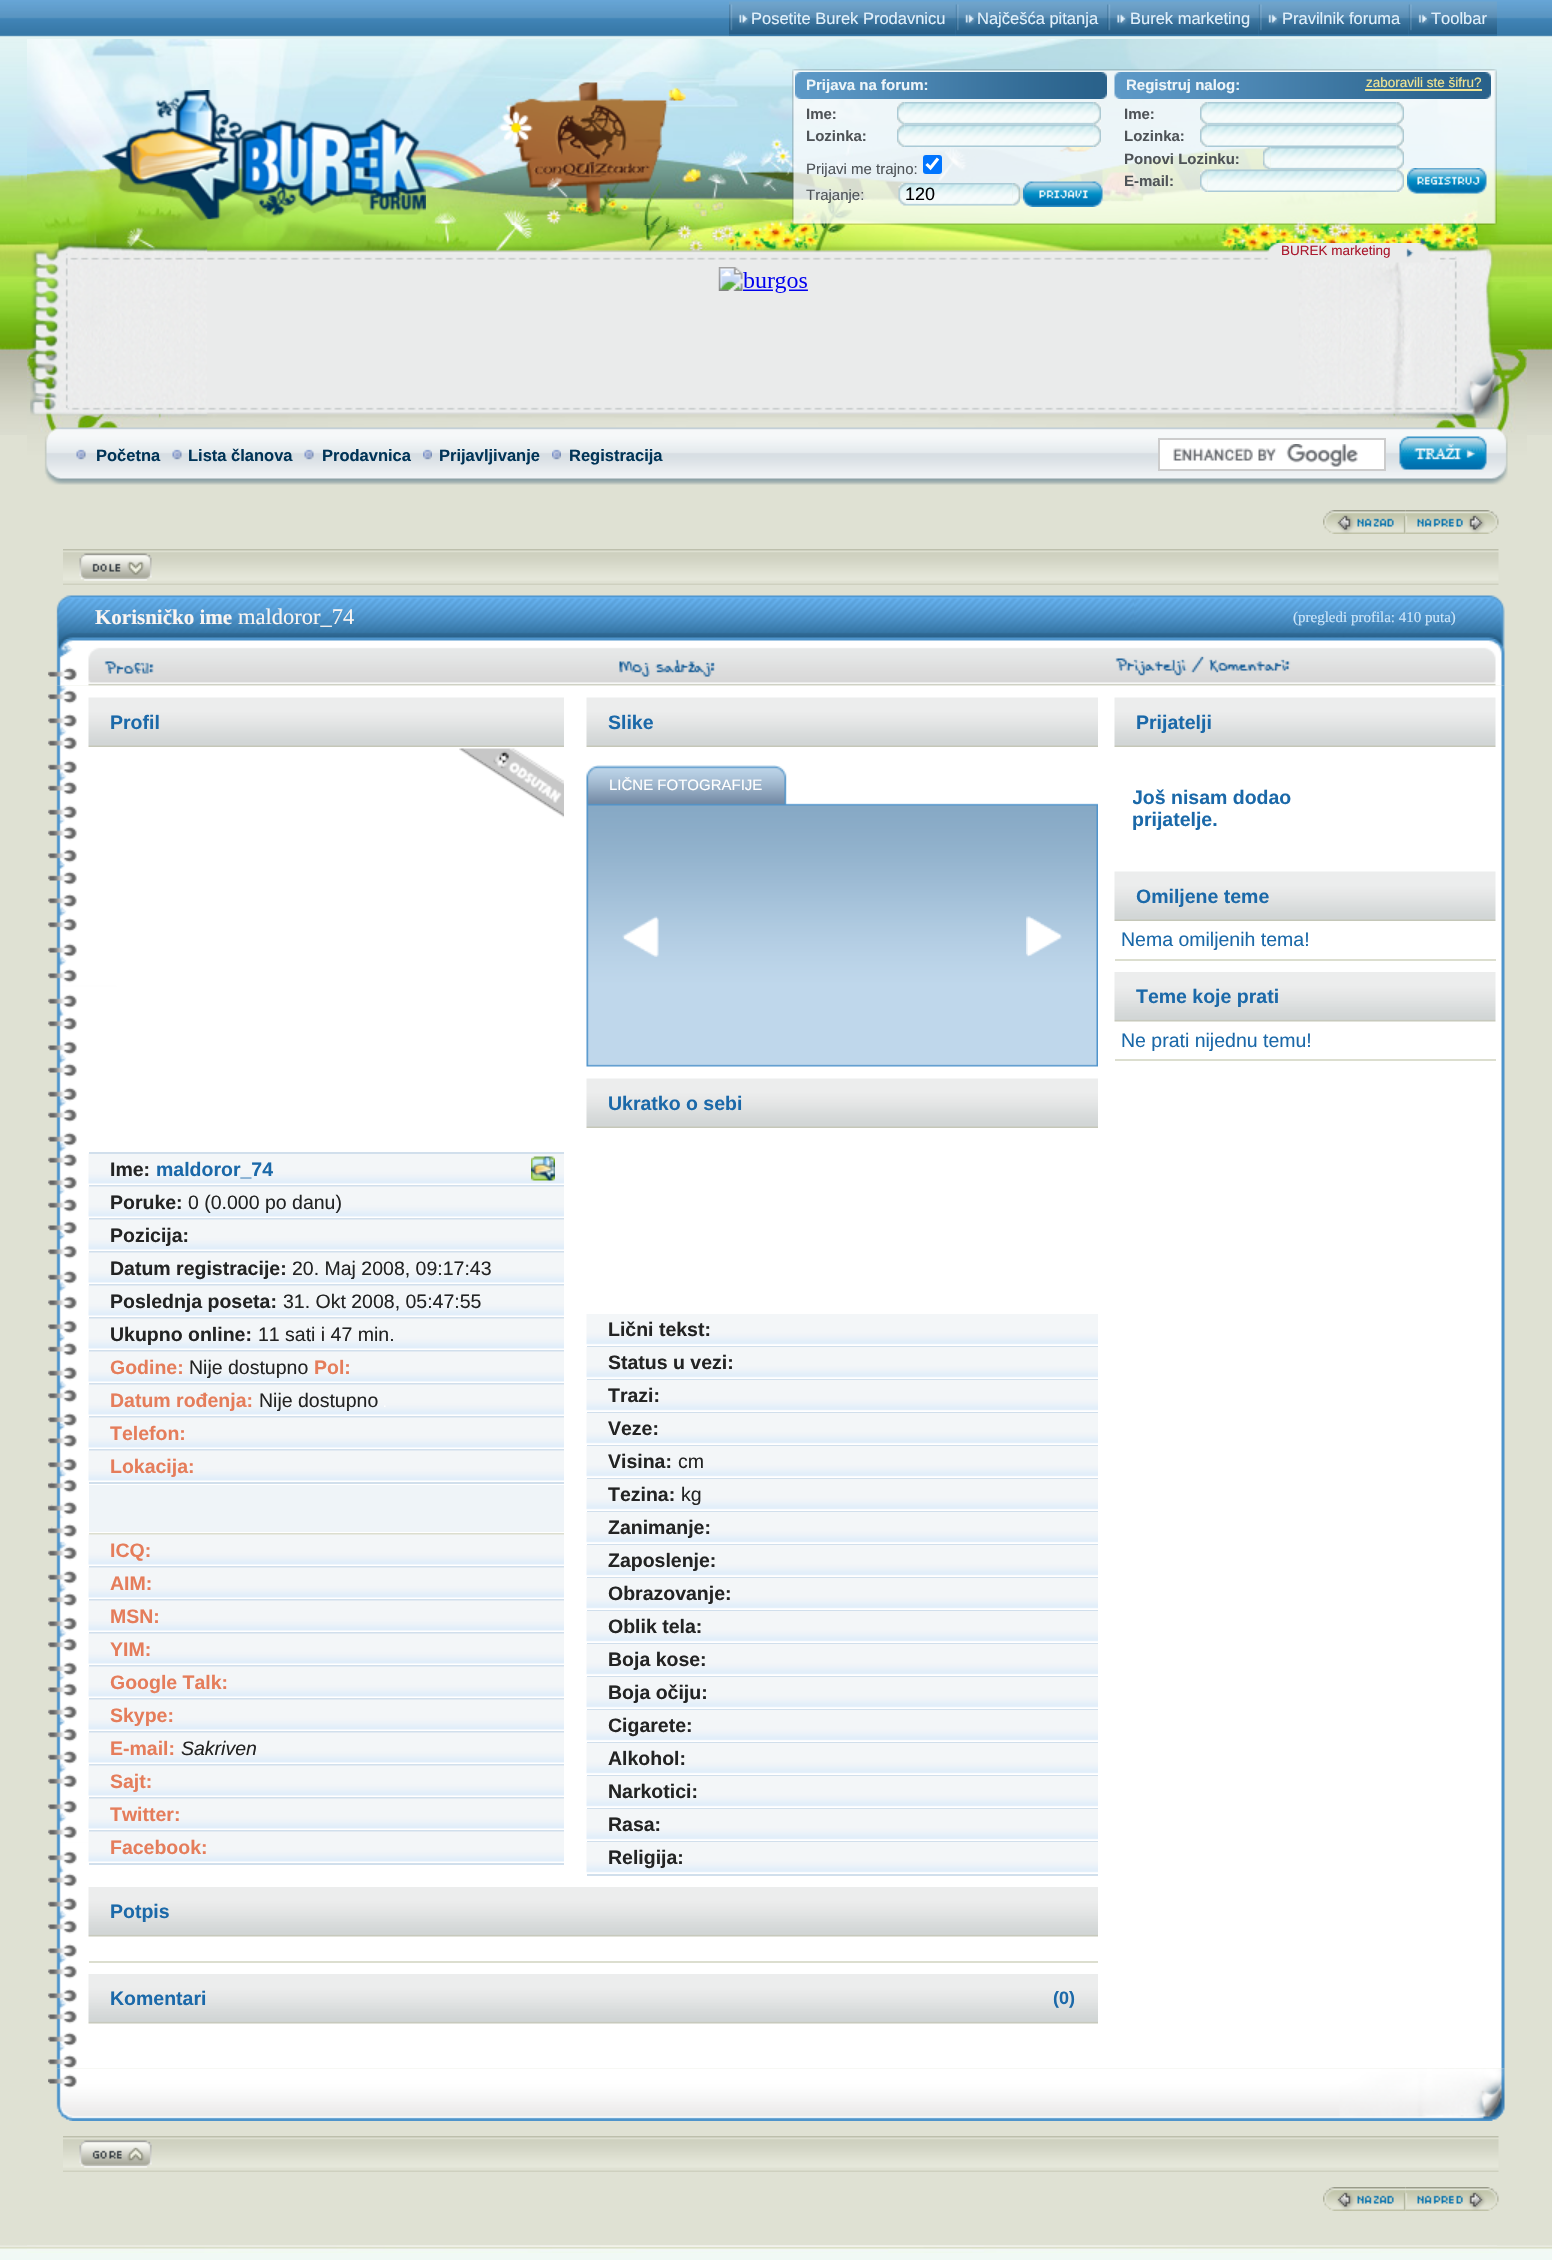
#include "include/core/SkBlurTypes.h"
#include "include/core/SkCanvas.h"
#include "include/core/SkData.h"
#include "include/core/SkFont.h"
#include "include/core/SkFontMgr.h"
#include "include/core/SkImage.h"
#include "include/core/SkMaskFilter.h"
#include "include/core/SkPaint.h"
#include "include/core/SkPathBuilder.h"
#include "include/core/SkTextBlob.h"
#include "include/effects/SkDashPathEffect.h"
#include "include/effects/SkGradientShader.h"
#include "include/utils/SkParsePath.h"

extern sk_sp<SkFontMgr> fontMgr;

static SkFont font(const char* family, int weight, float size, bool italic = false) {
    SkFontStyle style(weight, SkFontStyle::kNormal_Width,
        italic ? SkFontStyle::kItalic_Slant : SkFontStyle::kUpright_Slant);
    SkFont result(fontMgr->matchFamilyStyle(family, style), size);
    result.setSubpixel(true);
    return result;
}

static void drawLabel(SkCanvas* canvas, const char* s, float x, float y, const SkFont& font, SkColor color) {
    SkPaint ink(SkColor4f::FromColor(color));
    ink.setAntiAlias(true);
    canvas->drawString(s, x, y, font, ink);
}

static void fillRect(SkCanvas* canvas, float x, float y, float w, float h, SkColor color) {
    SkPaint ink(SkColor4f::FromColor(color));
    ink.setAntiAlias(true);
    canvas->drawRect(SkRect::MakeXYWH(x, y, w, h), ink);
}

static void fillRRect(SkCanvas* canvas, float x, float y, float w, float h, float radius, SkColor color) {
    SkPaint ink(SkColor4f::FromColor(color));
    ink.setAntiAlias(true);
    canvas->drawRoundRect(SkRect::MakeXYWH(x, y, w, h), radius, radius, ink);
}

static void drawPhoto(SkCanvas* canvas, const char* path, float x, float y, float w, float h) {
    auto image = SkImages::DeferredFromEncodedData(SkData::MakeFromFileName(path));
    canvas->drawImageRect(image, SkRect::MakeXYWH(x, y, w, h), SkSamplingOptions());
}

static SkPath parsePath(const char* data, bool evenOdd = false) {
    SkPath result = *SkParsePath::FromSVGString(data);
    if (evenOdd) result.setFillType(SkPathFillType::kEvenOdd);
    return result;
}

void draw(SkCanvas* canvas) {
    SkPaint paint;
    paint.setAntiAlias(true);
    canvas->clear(0xFFDFE1D3);
    drawPhoto(canvas, "assets/img1.png", 0, 35, 1552, 400);
    drawPhoto(canvas, "assets/img2.png", 0, 0, 1552, 37);
    drawPhoto(canvas, "assets/img4.png", 955, 1, 152, 35);
    drawPhoto(canvas, "assets/img3.png", 729, 1, 227, 35);
    SkFont font1 = font("Liberation Sans", 400, 16.5f);
    drawLabel(canvas, "Posetite Burek Prodavnicu", 751, 24, font1, 0xFFE1F0FB);
    drawLabel(canvas, "Najčešća pitanja", 977, 24, font1, 0xFFE1F0FB);
    drawPhoto(canvas, "assets/img7.png", 1408, 1, 89, 35);
    drawPhoto(canvas, "assets/img6.png", 1258, 1, 151, 35);
    drawPhoto(canvas, "assets/img5.png", 1107, 1, 152, 35);
    drawLabel(canvas, "Burek marketing", 1130, 24, font1, 0xFFE1F0FB);
    drawLabel(canvas, "Pravilnik foruma", 1282, 24, font1, 0xFFE1F0FB);
    drawLabel(canvas, "Toolbar", 1431, 24, font1, 0xFFE1F0FB);
    drawPhoto(canvas, "assets/img8.png", 27, 39, 1500, 416);
    drawPhoto(canvas, "assets/img9.png", 102, 90, 324, 131);
    drawPhoto(canvas, "assets/img10.png", 498, 79, 192, 146);
    drawPhoto(canvas, "assets/img11.png", 792, 69, 705, 156);
    drawPhoto(canvas, "assets/img12.png", 795, 72, 312, 27);
    SkFont font2 = font("Liberation Sans", 700, 15);
    drawLabel(canvas, "Prijava na forum:", 806, 90, font2, 0xFFEDF5F9);
    drawLabel(canvas, "Ime:", 806, 119, font2, 0xFF4F5458);
    drawPhoto(canvas, "assets/img13.png", 897, 102, 8, 23);
    drawPhoto(canvas, "assets/img14.png", 904, 102, 190, 23);
    drawPhoto(canvas, "assets/img15.png", 1093, 102, 8, 23);
    drawLabel(canvas, "Lozinka:", 806, 141, font2, 0xFF4F5458);
    drawPhoto(canvas, "assets/img16.png", 897, 124, 8, 23);
    drawPhoto(canvas, "assets/img17.png", 904, 124, 190, 23);
    drawPhoto(canvas, "assets/img18.png", 1093, 124, 8, 23);
    SkFont font3 = font("Liberation Sans", 400, 15);
    drawLabel(canvas, "Prijavi me trajno:", 806, 174, font3, 0xFF4F5458);
    fillRRect(canvas, 923, 155, 19, 19, 3, 0xFF0075FF);
    paint.setStroke(true);
    paint.setStrokeWidth(3.1f);
    paint.setColor(0xFFFFFFFF);
    canvas->drawPath(parsePath("M926.5 164L930.5 168L938 158.5"), paint);
    drawLabel(canvas, "Trajanje:", 806, 200, font3, 0xFF4F5458);
    drawPhoto(canvas, "assets/img19.png", 898, 183, 8, 23);
    drawPhoto(canvas, "assets/img20.png", 906, 183, 107, 23);
    SkFont font4 = font("Liberation Sans", 400, 18);
    drawLabel(canvas, "120", 905, 200, font4, 0xFF000000);
    drawPhoto(canvas, "assets/img21.png", 1012, 183, 8, 23);
    drawPhoto(canvas, "assets/img22.png", 1023, 181, 80, 26);
    drawPhoto(canvas, "assets/img23.png", 1114, 72, 377, 27);
    drawLabel(canvas, "Registruj nalog:", 1126, 90, font2, 0xFFEDF5F9);
    SkFont font5 = font("Liberation Sans", 400, 13.5f);
    drawLabel(canvas, "zaboravili ste šifru?", 1366, 87, font5, 0xFFEFE492);
    fillRect(canvas, 1365, 89, 117, 2, 0xFFEFE492);
    drawLabel(canvas, "Ime:", 1124, 119, font2, 0xFF4F5458);
    drawPhoto(canvas, "assets/img24.png", 1200, 102, 8, 23);
    drawPhoto(canvas, "assets/img25.png", 1207, 102, 190, 23);
    drawPhoto(canvas, "assets/img26.png", 1396, 102, 8, 23);
    drawLabel(canvas, "Lozinka:", 1124, 141, font2, 0xFF4F5458);
    drawPhoto(canvas, "assets/img27.png", 1200, 124, 8, 23);
    drawPhoto(canvas, "assets/img28.png", 1207, 124, 190, 23);
    drawPhoto(canvas, "assets/img29.png", 1396, 124, 8, 23);
    drawLabel(canvas, "Ponovi Lozinku:", 1124, 164, font2, 0xFF4F5458);
    drawPhoto(canvas, "assets/img30.png", 1263, 147, 8, 23);
    drawPhoto(canvas, "assets/img31.png", 1270, 147, 127, 23);
    drawPhoto(canvas, "assets/img32.png", 1396, 147, 8, 23);
    drawLabel(canvas, "E-mail:", 1124, 186, font2, 0xFF4F5458);
    drawPhoto(canvas, "assets/img33.png", 1200, 169, 8, 23);
    drawPhoto(canvas, "assets/img34.png", 1207, 169, 190, 23);
    drawPhoto(canvas, "assets/img35.png", 1396, 169, 8, 23);
    drawPhoto(canvas, "assets/img36.png", 1407, 168, 80, 26);
    drawPhoto(canvas, "assets/img37.png", 30, 243, 1469, 176);
    drawLabel(canvas, "BUREK marketing", 1281, 255, font5, 0xFFAA192E);
    drawPhoto(canvas, "assets/img38.png", 718, 267, 90, 26);
    drawPhoto(canvas, "assets/img39.png", 44, 427, 1464, 58);
    drawPhoto(canvas, "assets/img40.png", 76, 449, 10, 11);
    SkFont font6 = font("Liberation Sans", 700, 16.5f);
    drawLabel(canvas, "Početna", 96, 461, font6, 0xFF003457);
    drawPhoto(canvas, "assets/img41.png", 172, 449, 10, 11);
    drawLabel(canvas, "Lista članova", 188, 461, font6, 0xFF003457);
    drawPhoto(canvas, "assets/img41.png", 304, 449, 10, 11);
    drawLabel(canvas, "Prodavnica", 322, 461, font6, 0xFF003457);
    drawPhoto(canvas, "assets/img42.png", 423, 449, 9, 11);
    drawLabel(canvas, "Prijavljivanje", 439, 461, font6, 0xFF003457);
    drawPhoto(canvas, "assets/img43.png", 552, 449, 9, 11);
    drawLabel(canvas, "Registracija", 569, 461, font6, 0xFF003457);
    fillRect(canvas, 1160, 440, 224, 29, 0xFFFFFFFF);
    drawPhoto(canvas, "assets/img44.png", 1173, 444, 185, 23);
    paint.setStrokeWidth(2);
    paint.setColor(0xFFCCCCCC);
    canvas->drawRect(SkRect::MakeXYWH(1159, 439, 226, 31), paint);
    drawPhoto(canvas, "assets/img45.png", 1399, 436, 88, 34);
    drawPhoto(canvas, "assets/img46.png", 1323, 510, 83, 24);
    drawPhoto(canvas, "assets/img47.png", 1405, 510, 94, 24);
    drawPhoto(canvas, "assets/img48.png", 63, 549, 1436, 36);
    drawPhoto(canvas, "assets/img49.png", 79, 553, 73, 28);
    drawPhoto(canvas, "assets/img50.png", 56, 595, 1449, 44);
    SkFont font7 = font("Liberation Serif", 700, 21);
    drawLabel(canvas, "Korisničko ime", 95, 624, font7, 0xFFFAF5F2);
    SkFont font8 = font("Liberation Serif", 400, 22.5f);
    drawLabel(canvas, "maldoror_74", 238, 624, font8, 0xFFFAF5F2);
    SkFont font9 = font("Liberation Serif", 400, 15);
    drawLabel(canvas, "(pregledi profila: 410 puta)", 1293, 622, font9, 0xFFCBE5FA);
    drawPhoto(canvas, "assets/img51.png", 48, 639, 1457, 47);
    drawPhoto(canvas, "assets/img52.png", 48, 685, 1457, 1384);
    drawPhoto(canvas, "assets/img53.png", 88, 697, 476, 50);
    SkFont font10 = font("Liberation Sans", 700, 19.5f);
    drawLabel(canvas, "Profil", 110, 729, font10, 0xFF1B69A9);
    drawPhoto(canvas, "assets/img54.png", 459, 748, 105, 70);
    drawPhoto(canvas, "assets/img55.png", 88, 1153, 476, 31);
    fillRect(canvas, 89, 1152, 475, 2, 0xFFD1DFEC);
    fillRect(canvas, 89, 1185, 475, 2, 0xFFD1DFEC);
    drawLabel(canvas, "Ime:", 110, 1176, font10, 0xFF232424);
    drawLabel(canvas, "maldoror_74", 156, 1176, font10, 0xFF1B69A9);
    drawPhoto(canvas, "assets/img56.png", 531, 1156, 24, 25);
    drawPhoto(canvas, "assets/img57.png", 88, 1186, 476, 31);
    fillRect(canvas, 89, 1218, 475, 2, 0xFFD1DFEC);
    drawLabel(canvas, "Poruke:", 110, 1209, font10, 0xFF232424);
    SkFont font11 = font("Liberation Sans", 400, 19.5f);
    drawLabel(canvas, "0 (0.000 po danu)", 188, 1209, font11, 0xFF232424);
    drawPhoto(canvas, "assets/img57.png", 88, 1219, 476, 31);
    fillRect(canvas, 89, 1251, 475, 2, 0xFFD1DFEC);
    drawLabel(canvas, "Pozicija:", 110, 1242, font10, 0xFF232424);
    drawPhoto(canvas, "assets/img57.png", 88, 1252, 476, 31);
    fillRect(canvas, 89, 1284, 475, 2, 0xFFD1DFEC);
    drawLabel(canvas, "Datum registracije:", 110, 1275, font10, 0xFF232424);
    drawLabel(canvas, "20. Maj 2008, 09:17:43", 292, 1275, font11, 0xFF232424);
    drawPhoto(canvas, "assets/img57.png", 88, 1285, 476, 31);
    fillRect(canvas, 89, 1317, 475, 2, 0xFFD1DFEC);
    drawLabel(canvas, "Poslednja poseta:", 110, 1308, font10, 0xFF232424);
    drawLabel(canvas, "31. Okt 2008, 05:47:55", 283, 1308, font11, 0xFF232424);
    drawPhoto(canvas, "assets/img57.png", 88, 1318, 476, 31);
    fillRect(canvas, 89, 1350, 475, 2, 0xFFD1DFEC);
    drawLabel(canvas, "Ukupno online:", 110, 1341, font10, 0xFF232424);
    drawLabel(canvas, "11 sati i 47 min.", 258, 1341, font11, 0xFF232424);
    drawPhoto(canvas, "assets/img57.png", 88, 1351, 476, 31);
    fillRect(canvas, 89, 1383, 475, 2, 0xFFD1DFEC);
    drawLabel(canvas, "Godine:", 110, 1374, font10, 0xFFE57D5B);
    drawLabel(canvas, "Nije dostupno", 189, 1374, font11, 0xFF232424);
    drawLabel(canvas, "Pol:", 314, 1374, font10, 0xFFE57D5B);
    drawPhoto(canvas, "assets/img57.png", 88, 1384, 476, 31);
    fillRect(canvas, 89, 1416, 475, 2, 0xFFD1DFEC);
    drawLabel(canvas, "Datum rođenja:", 110, 1407, font10, 0xFFE57D5B);
    drawLabel(canvas, "Nije dostupno", 259, 1407, font11, 0xFF232424);
    drawPhoto(canvas, "assets/img58.png", 384, 1405, 2, 2);
    drawPhoto(canvas, "assets/img57.png", 88, 1417, 476, 31);
    fillRect(canvas, 89, 1449, 475, 2, 0xFFD1DFEC);
    drawLabel(canvas, "Telefon:", 110, 1440, font10, 0xFFE57D5B);
    drawPhoto(canvas, "assets/img57.png", 88, 1450, 476, 31);
    fillRect(canvas, 89, 1482, 475, 2, 0xFFD1DFEC);
    drawLabel(canvas, "Lokacija:", 110, 1473, font10, 0xFFE57D5B);
    fillRect(canvas, 89, 1533, 475, 2, 0xFFDCDECF);
    fillRect(canvas, 89, 1485, 475, 47, 0xFFEFF4F8);
    drawPhoto(canvas, "assets/img59.png", 88, 1534, 476, 31);
    fillRect(canvas, 89, 1566, 475, 2, 0xFFD1DFEC);
    drawLabel(canvas, "ICQ:", 110, 1557, font10, 0xFFE57D5B);
    drawPhoto(canvas, "assets/img57.png", 88, 1567, 476, 31);
    fillRect(canvas, 89, 1599, 475, 2, 0xFFD1DFEC);
    drawLabel(canvas, "AIM:", 110, 1590, font10, 0xFFE57D5B);
    drawPhoto(canvas, "assets/img57.png", 88, 1600, 476, 31);
    fillRect(canvas, 89, 1632, 475, 2, 0xFFD1DFEC);
    drawLabel(canvas, "MSN:", 110, 1623, font10, 0xFFE57D5B);
    drawPhoto(canvas, "assets/img57.png", 88, 1633, 476, 31);
    fillRect(canvas, 89, 1665, 475, 2, 0xFFD1DFEC);
    drawLabel(canvas, "YIM:", 110, 1656, font10, 0xFFE57D5B);
    drawPhoto(canvas, "assets/img57.png", 88, 1666, 476, 31);
    fillRect(canvas, 89, 1698, 475, 2, 0xFFD1DFEC);
    drawLabel(canvas, "Google Talk:", 110, 1689, font10, 0xFFE57D5B);
    drawPhoto(canvas, "assets/img57.png", 88, 1699, 476, 31);
    fillRect(canvas, 89, 1731, 475, 2, 0xFFD1DFEC);
    drawLabel(canvas, "Skype:", 110, 1722, font10, 0xFFE57D5B);
    drawPhoto(canvas, "assets/img57.png", 88, 1732, 476, 31);
    fillRect(canvas, 89, 1764, 475, 2, 0xFFD1DFEC);
    drawLabel(canvas, "E-mail:", 110, 1755, font10, 0xFFE57D5B);
    SkFont font12 = font("Liberation Sans", 400, 19.5f, true);
    drawLabel(canvas, "Sakriven", 181, 1755, font12, 0xFF232424);
    drawPhoto(canvas, "assets/img57.png", 88, 1765, 476, 31);
    fillRect(canvas, 89, 1797, 475, 2, 0xFFD1DFEC);
    drawLabel(canvas, "Sajt:", 110, 1788, font10, 0xFFE57D5B);
    drawPhoto(canvas, "assets/img57.png", 88, 1798, 476, 31);
    fillRect(canvas, 89, 1830, 475, 2, 0xFFD1DFEC);
    drawLabel(canvas, "Twitter:", 110, 1821, font10, 0xFFE57D5B);
    drawPhoto(canvas, "assets/img60.png", 88, 1831, 476, 31);
    fillRect(canvas, 89, 1863, 475, 2, 0xFFD1DFEC);
    drawLabel(canvas, "Facebook:", 110, 1854, font10, 0xFFE57D5B);
    drawPhoto(canvas, "assets/img61.png", 586, 697, 512, 50);
    drawLabel(canvas, "Slike", 608, 729, font10, 0xFF1B69A9);
    drawPhoto(canvas, "assets/img62.png", 586, 765, 512, 302);
    drawLabel(canvas, "LIČNE FOTOGRAFIJE", 609, 790, font3, 0xFFFFFFFF);
    drawPhoto(canvas, "assets/img63.png", 622, 916, 37, 41);
    drawPhoto(canvas, "assets/img64.png", 1026, 916, 36, 41);
    drawPhoto(canvas, "assets/img61.png", 586, 1078, 512, 50);
    drawLabel(canvas, "Ukratko o sebi", 608, 1110, font10, 0xFF1B69A9);
    drawPhoto(canvas, "assets/img65.png", 586, 1314, 512, 31);
    fillRect(canvas, 587, 1346, 511, 1, 0xFFD1DFEC);
    drawLabel(canvas, "Lični tekst:", 608, 1336, font10, 0xFF232424);
    drawPhoto(canvas, "assets/img65.png", 586, 1347, 512, 31);
    fillRect(canvas, 587, 1379, 511, 1, 0xFFD1DFEC);
    drawLabel(canvas, "Status u vezi:", 608, 1369, font10, 0xFF232424);
    drawPhoto(canvas, "assets/img65.png", 586, 1380, 512, 31);
    fillRect(canvas, 587, 1412, 511, 1, 0xFFD1DFEC);
    drawLabel(canvas, "Trazi:", 608, 1402, font10, 0xFF232424);
    drawPhoto(canvas, "assets/img65.png", 586, 1413, 512, 31);
    fillRect(canvas, 587, 1445, 511, 1, 0xFFD1DFEC);
    drawLabel(canvas, "Veze:", 608, 1435, font10, 0xFF232424);
    drawPhoto(canvas, "assets/img65.png", 586, 1446, 512, 31);
    fillRect(canvas, 587, 1478, 511, 1, 0xFFD1DFEC);
    drawLabel(canvas, "Visina:", 608, 1468, font10, 0xFF232424);
    drawLabel(canvas, "cm", 678, 1468, font11, 0xFF232424);
    drawPhoto(canvas, "assets/img65.png", 586, 1479, 512, 31);
    fillRect(canvas, 587, 1511, 511, 1, 0xFFD1DFEC);
    drawLabel(canvas, "Tezina:", 608, 1501, font10, 0xFF232424);
    drawLabel(canvas, "kg", 681, 1501, font11, 0xFF232424);
    drawPhoto(canvas, "assets/img65.png", 586, 1512, 512, 31);
    fillRect(canvas, 587, 1544, 511, 1, 0xFFD1DFEC);
    drawLabel(canvas, "Zanimanje:", 608, 1534, font10, 0xFF232424);
    drawPhoto(canvas, "assets/img65.png", 586, 1545, 512, 31);
    fillRect(canvas, 587, 1577, 511, 1, 0xFFD1DFEC);
    drawLabel(canvas, "Zaposlenje:", 608, 1567, font10, 0xFF232424);
    drawPhoto(canvas, "assets/img65.png", 586, 1578, 512, 31);
    fillRect(canvas, 587, 1610, 511, 1, 0xFFD1DFEC);
    drawLabel(canvas, "Obrazovanje:", 608, 1600, font10, 0xFF232424);
    drawPhoto(canvas, "assets/img65.png", 586, 1611, 512, 31);
    fillRect(canvas, 587, 1643, 511, 1, 0xFFD1DFEC);
    drawLabel(canvas, "Oblik tela:", 608, 1633, font10, 0xFF232424);
    drawPhoto(canvas, "assets/img65.png", 586, 1644, 512, 31);
    fillRect(canvas, 587, 1676, 511, 1, 0xFFD1DFEC);
    drawLabel(canvas, "Boja kose:", 608, 1666, font10, 0xFF232424);
    drawPhoto(canvas, "assets/img65.png", 586, 1677, 512, 31);
    fillRect(canvas, 587, 1709, 511, 1, 0xFFD1DFEC);
    drawLabel(canvas, "Boja očiju:", 608, 1699, font10, 0xFF232424);
    drawPhoto(canvas, "assets/img65.png", 586, 1710, 512, 31);
    fillRect(canvas, 587, 1742, 511, 1, 0xFFD1DFEC);
    drawLabel(canvas, "Cigarete:", 608, 1732, font10, 0xFF232424);
    drawPhoto(canvas, "assets/img65.png", 586, 1743, 512, 31);
    fillRect(canvas, 587, 1775, 511, 1, 0xFFD1DFEC);
    drawLabel(canvas, "Alkohol:", 608, 1765, font10, 0xFF232424);
    drawPhoto(canvas, "assets/img65.png", 586, 1776, 512, 31);
    fillRect(canvas, 587, 1808, 511, 1, 0xFFD1DFEC);
    drawLabel(canvas, "Narkotici:", 608, 1798, font10, 0xFF232424);
    drawPhoto(canvas, "assets/img65.png", 586, 1809, 512, 31);
    fillRect(canvas, 587, 1841, 511, 1, 0xFFD1DFEC);
    drawLabel(canvas, "Rasa:", 608, 1831, font10, 0xFF232424);
    drawPhoto(canvas, "assets/img65.png", 586, 1842, 512, 31);
    fillRect(canvas, 587, 1874, 511, 2, 0xFFD1DFEC);
    drawLabel(canvas, "Religija:", 608, 1864, font10, 0xFF232424);
    drawPhoto(canvas, "assets/img66.png", 88, 1887, 1010, 50);
    drawLabel(canvas, "Potpis", 110, 1918, font10, 0xFF1B69A9);
    fillRect(canvas, 89, 1961, 1009, 2, 0xFFDCDECF);
    drawPhoto(canvas, "assets/img66.png", 88, 1974, 1010, 50);
    drawLabel(canvas, "Komentari", 110, 2005, font10, 0xFF1B69A9);
    SkFont font13 = font("Liberation Sans", 700, 18);
    drawLabel(canvas, "(0)", 1053, 2004, font13, 0xFF1B69A9);
    drawPhoto(canvas, "assets/img67.png", 1114, 697, 382, 50);
    drawLabel(canvas, "Prijatelji", 1136, 729, font10, 0xFF1B69A9);
    canvas->save();
    canvas->clipRect(SkRect::MakeXYWH(1133, 786, 229, 45));
    drawLabel(canvas, "Još nisam dodao", 1132, 804, font10, 0xFF1B69A9);
    canvas->restore();
    drawLabel(canvas, "prijatelje.", 1132, 826, font10, 0xFF1B69A9);
    drawPhoto(canvas, "assets/img67.png", 1114, 871, 382, 50);
    drawLabel(canvas, "Omiljene teme", 1136, 903, font10, 0xFF1B69A9);
    fillRect(canvas, 1115, 959, 381, 2, 0xFFDCDECF);
    drawLabel(canvas, "Nema omiljenih tema!", 1121, 946, font11, 0xFF1B69A9);
    drawPhoto(canvas, "assets/img68.png", 1114, 972, 382, 50);
    drawLabel(canvas, "Teme koje prati", 1136, 1003, font10, 0xFF1B69A9);
    fillRect(canvas, 1115, 1059, 381, 2, 0xFFDCDECF);
    drawLabel(canvas, "Ne prati nijednu temu!", 1121, 1047, font11, 0xFF1B69A9);
    drawPhoto(canvas, "assets/img69.png", 48, 2068, 1457, 53);
    drawPhoto(canvas, "assets/img48.png", 63, 2136, 1436, 36);
    drawPhoto(canvas, "assets/img70.png", 79, 2140, 73, 28);
    drawPhoto(canvas, "assets/img46.png", 1323, 2187, 83, 24);
    drawPhoto(canvas, "assets/img47.png", 1405, 2187, 94, 24);
    drawPhoto(canvas, "assets/img71.png", 0, 2245, 1552, 15);
    drawPhoto(canvas, "assets/img72.png", 27, 2245, 1470, 8);
}
